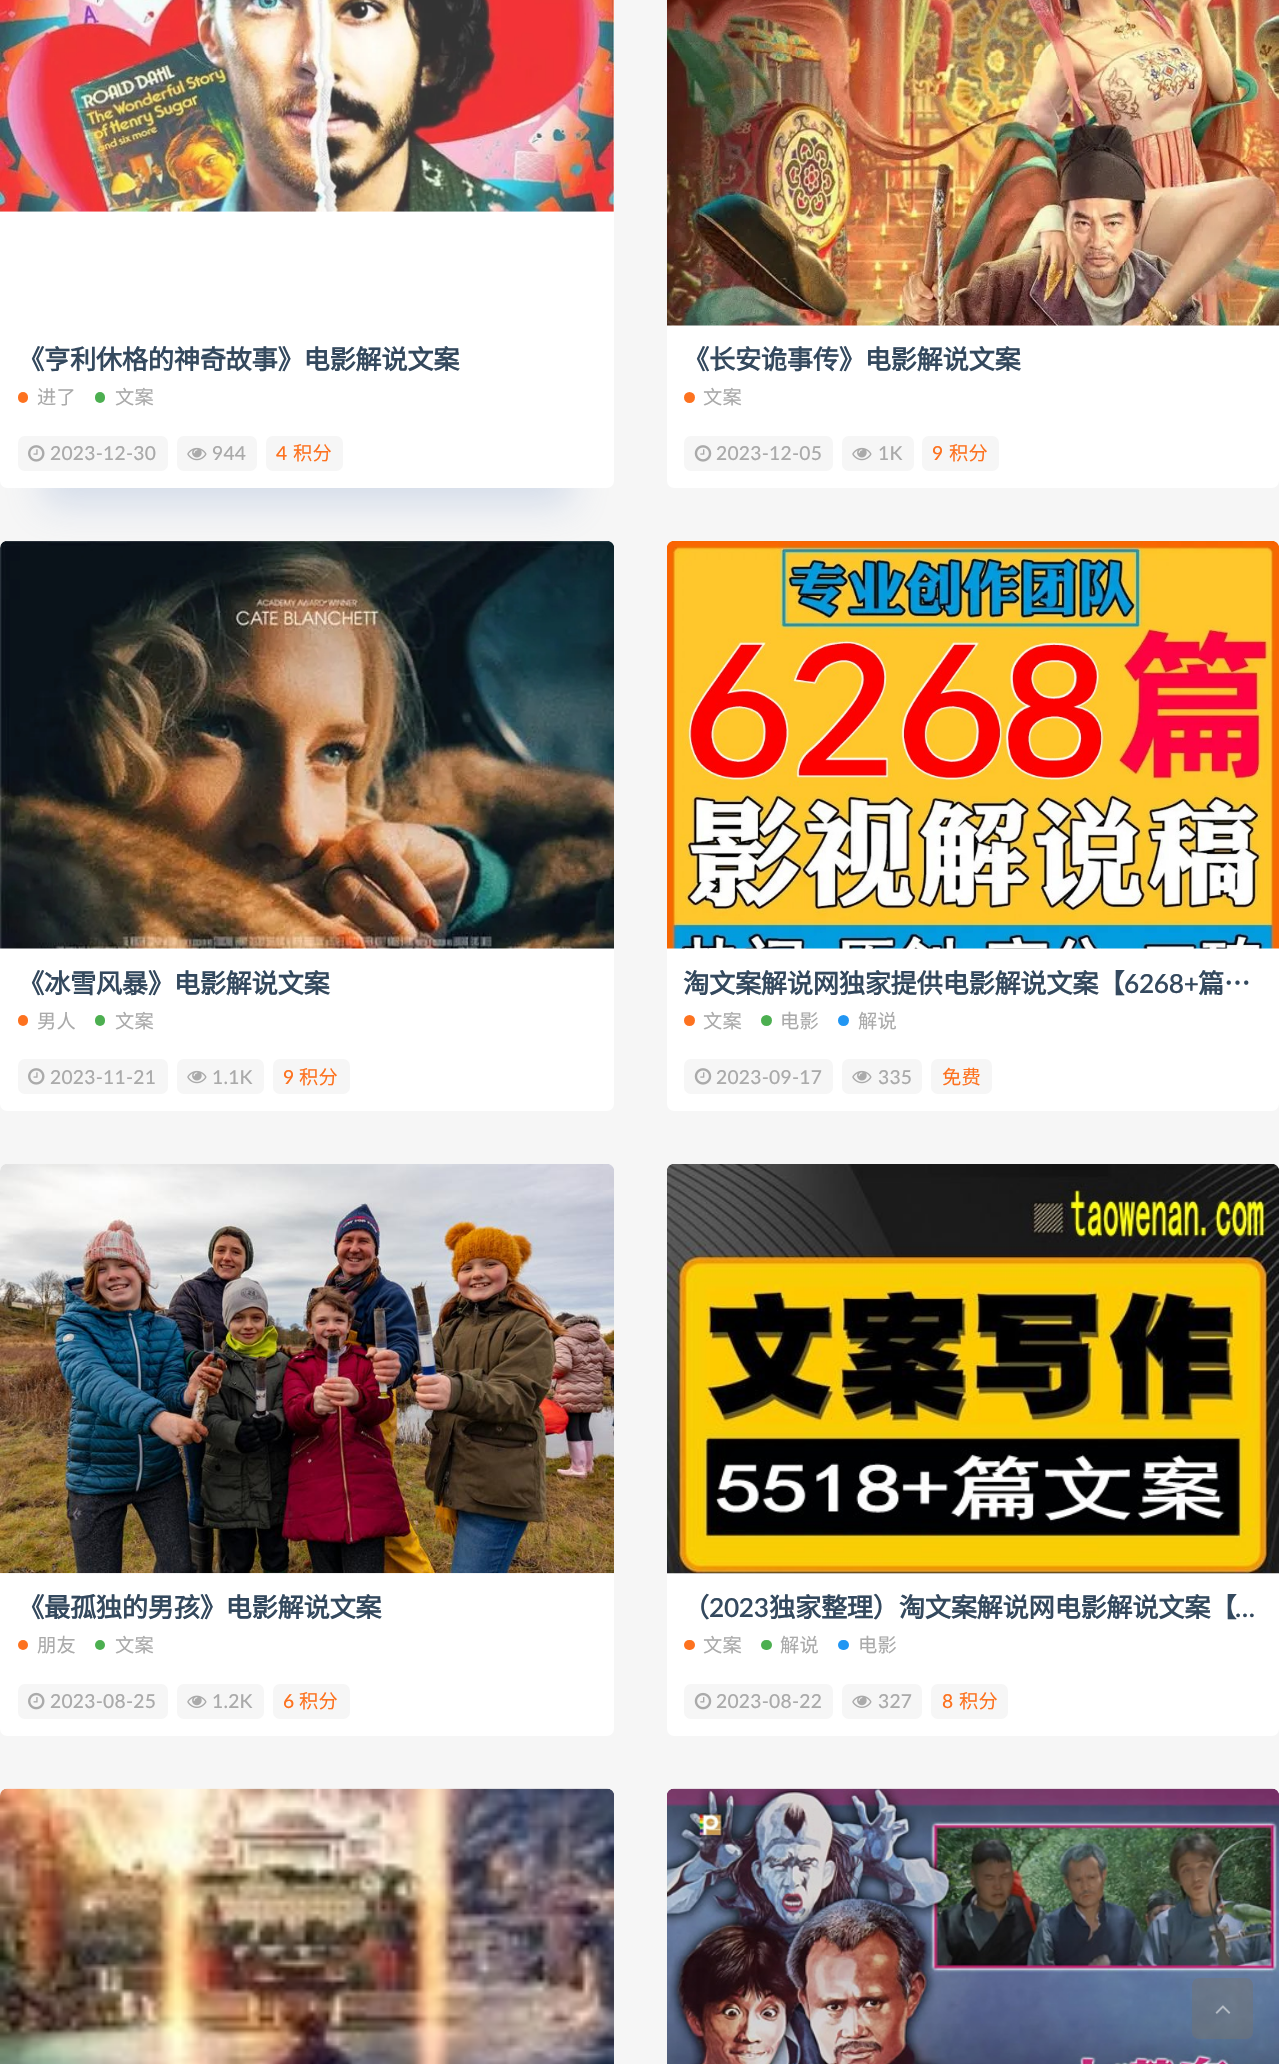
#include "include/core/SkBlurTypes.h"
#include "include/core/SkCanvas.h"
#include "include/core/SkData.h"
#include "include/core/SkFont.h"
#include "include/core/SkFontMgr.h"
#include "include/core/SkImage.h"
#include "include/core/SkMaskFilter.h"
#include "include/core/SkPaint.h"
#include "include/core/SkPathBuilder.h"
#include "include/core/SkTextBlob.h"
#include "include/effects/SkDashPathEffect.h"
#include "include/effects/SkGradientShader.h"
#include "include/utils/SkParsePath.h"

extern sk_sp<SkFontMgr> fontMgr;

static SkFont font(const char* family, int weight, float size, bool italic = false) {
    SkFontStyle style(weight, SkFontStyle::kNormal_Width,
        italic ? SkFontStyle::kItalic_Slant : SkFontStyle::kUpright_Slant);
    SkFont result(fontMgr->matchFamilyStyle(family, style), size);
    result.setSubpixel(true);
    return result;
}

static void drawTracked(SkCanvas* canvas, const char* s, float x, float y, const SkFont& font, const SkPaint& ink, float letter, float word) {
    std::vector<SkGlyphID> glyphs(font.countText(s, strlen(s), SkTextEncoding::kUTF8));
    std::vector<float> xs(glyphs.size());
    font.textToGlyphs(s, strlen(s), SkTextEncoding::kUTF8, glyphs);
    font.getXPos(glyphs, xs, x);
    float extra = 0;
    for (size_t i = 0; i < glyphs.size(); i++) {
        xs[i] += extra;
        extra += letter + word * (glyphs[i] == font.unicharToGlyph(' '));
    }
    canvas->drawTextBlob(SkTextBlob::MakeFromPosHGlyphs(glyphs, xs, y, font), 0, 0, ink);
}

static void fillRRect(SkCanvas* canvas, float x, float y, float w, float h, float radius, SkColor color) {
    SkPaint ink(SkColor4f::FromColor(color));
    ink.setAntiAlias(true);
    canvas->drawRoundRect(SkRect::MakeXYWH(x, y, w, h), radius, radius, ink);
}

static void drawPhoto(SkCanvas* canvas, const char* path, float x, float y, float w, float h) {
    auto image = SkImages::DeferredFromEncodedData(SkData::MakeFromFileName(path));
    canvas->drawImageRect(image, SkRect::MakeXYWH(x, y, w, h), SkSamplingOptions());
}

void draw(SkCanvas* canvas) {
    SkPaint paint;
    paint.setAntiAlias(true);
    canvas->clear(0xFFF6F6F6);
    paint.setColor(0x4D88A1CE);
    paint.setMaskFilter(SkMaskFilter::MakeBlur(kNormal_SkBlurStyle, 17.5f));
    canvas->drawRect(SkRect::MakeXYWH(42, 18, 530, 488), paint);
    paint.setMaskFilter(nullptr);
    fillRRect(canvas, 0, -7, 614, 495, 7, 0xFFFFFFFF);
    drawPhoto(canvas, "assets/img1.png", 0, 0, 614, 212);
    SkFont font1 = font("Noto Sans CJK SC", 700, 26.25f);
    paint.setColor(0xFF34495E);
    drawTracked(canvas, "《亨利休格的神奇故事》电影解说文案", 18, 369, font1, paint, -0.3f, 0);
    fillRRect(canvas, 18, 392, 10, 11, 5, 0xFFFD721F);
    SkFont font2 = font("Noto Sans CJK SC", 400, 19.25f);
    paint.setColor(0xFFAAAAAA);
    drawTracked(canvas, "进了", 37, 404, font2, paint, 0.25f, 0);
    fillRRect(canvas, 95, 392, 10, 11, 5, 0xFF4CAF50);
    drawTracked(canvas, "文案", 115, 404, font2, paint, 0.25f, 0);
    fillRRect(canvas, 18, 436, 150, 35, 7, 0xFFF6F6F6);
    drawPhoto(canvas, "assets/img2.png", 28, 445, 17, 17);
    SkFont font3 = font("Lato", 500, 19.25f);
    drawTracked(canvas, "2023-12-30", 50, 460, font3, paint, 0.25f, 0);
    fillRRect(canvas, 177, 436, 80, 35, 7, 0xFFF6F6F6);
    drawPhoto(canvas, "assets/img3.png", 187, 447, 20, 14);
    drawTracked(canvas, "944", 212, 460, font3, paint, 0.25f, 0);
    fillRRect(canvas, 266, 436, 77, 35, 7, 0xFFF6F6F6);
    paint.setColor(0xFFFD721F);
    drawTracked(canvas, "4", 276, 460, font3, paint, 0.25f, 0);
    drawTracked(canvas, "积分", 293, 460, font2, paint, 0.25f, 0);
    fillRRect(canvas, 667, -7, 612, 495, 7, 0xFFFFFFFF);
    drawPhoto(canvas, "assets/img4.png", 667, 0, 612, 326);
    paint.setColor(0xFF34495E);
    drawTracked(canvas, "《长安诡事传》电影解说文案", 683, 369, font1, paint, -0.3f, 0);
    paint.setColor(0xFFFD721F);
    canvas->drawCircle(689.5f, 397.5f, 5.5f, paint);
    paint.setColor(0xFFAAAAAA);
    drawTracked(canvas, "文案", 703, 404, font2, paint, 0.25f, 0);
    fillRRect(canvas, 684, 436, 149, 35, 7, 0xFFF6F6F6);
    drawPhoto(canvas, "assets/img5.png", 694, 445, 18, 17);
    drawTracked(canvas, "2023-12-05", 716, 460, font3, paint, 0.25f, 0);
    fillRRect(canvas, 842, 436, 72, 35, 7, 0xFFF6F6F6);
    drawPhoto(canvas, "assets/img3.png", 852, 447, 20, 14);
    drawTracked(canvas, "1K", 878, 460, font3, paint, 0.25f, 0);
    fillRRect(canvas, 922, 436, 77, 35, 7, 0xFFF6F6F6);
    paint.setColor(0xFFFD721F);
    drawTracked(canvas, "9", 932, 460, font3, paint, 0.25f, 0);
    drawTracked(canvas, "积分", 949, 460, font2, paint, 0.25f, 0);
    fillRRect(canvas, 0, 541, 614, 570, 7, 0xFFFFFFFF);
    drawPhoto(canvas, "assets/img6.png", 0, 541, 614, 408);
    paint.setColor(0xFF34495E);
    drawTracked(canvas, "《冰雪风暴》电影解说文案", 18, 993, font1, paint, -0.3f, 0);
    fillRRect(canvas, 18, 1015, 10, 11, 5, 0xFFFD721F);
    paint.setColor(0xFFAAAAAA);
    drawTracked(canvas, "男人", 37, 1028, font2, paint, 0.25f, 0);
    fillRRect(canvas, 95, 1015, 10, 11, 5, 0xFF4CAF50);
    drawTracked(canvas, "文案", 115, 1028, font2, paint, 0.25f, 0);
    fillRRect(canvas, 18, 1059, 150, 35, 7, 0xFFF6F6F6);
    drawPhoto(canvas, "assets/img2.png", 28, 1068, 17, 17);
    drawTracked(canvas, "2023-11-21", 50, 1084, font3, paint, 0.25f, 0);
    fillRRect(canvas, 177, 1059, 87, 35, 7, 0xFFF6F6F6);
    drawPhoto(canvas, "assets/img3.png", 187, 1070, 20, 14);
    drawTracked(canvas, "1.1K", 212, 1084, font3, paint, 0.25f, 0);
    fillRRect(canvas, 273, 1059, 77, 35, 7, 0xFFF6F6F6);
    paint.setColor(0xFFFD721F);
    drawTracked(canvas, "9", 283, 1084, font3, paint, 0.25f, 0);
    drawTracked(canvas, "积分", 299, 1084, font2, paint, 0.25f, 0);
    fillRRect(canvas, 667, 541, 612, 570, 7, 0xFFFFFFFF);
    drawPhoto(canvas, "assets/img7.png", 667, 541, 612, 408);
    paint.setColor(0xFF34495E);
    drawTracked(canvas, "淘文案解说网独家提供电影解说文案【", 683, 993, font1, paint, -0.3f, 0);
    SkFont font4 = font("Lato", 600, 26.25f);
    drawTracked(canvas, "6268+", 1124, 993, font4, paint, -0.3f, 0);
    drawTracked(canvas, "篇…", 1198, 993, font1, paint, -0.3f, 0);
    paint.setColor(0xFFFD721F);
    canvas->drawCircle(689.5f, 1020.5f, 5.5f, paint);
    paint.setColor(0xFFAAAAAA);
    drawTracked(canvas, "文案", 703, 1028, font2, paint, 0.25f, 0);
    paint.setColor(0xFF4CAF50);
    canvas->drawCircle(766.5f, 1020.5f, 5.5f, paint);
    paint.setColor(0xFFAAAAAA);
    drawTracked(canvas, "电影", 780, 1028, font2, paint, 0.25f, 0);
    paint.setColor(0xFF2196F3);
    canvas->drawCircle(843.5f, 1020.5f, 5.5f, paint);
    paint.setColor(0xFFAAAAAA);
    drawTracked(canvas, "解说", 858, 1028, font2, paint, 0.25f, 0);
    fillRRect(canvas, 684, 1059, 149, 35, 7, 0xFFF6F6F6);
    drawPhoto(canvas, "assets/img5.png", 694, 1068, 18, 17);
    drawTracked(canvas, "2023-09-17", 716, 1084, font3, paint, 0.25f, 0);
    fillRRect(canvas, 842, 1059, 80, 35, 7, 0xFFF6F6F6);
    drawPhoto(canvas, "assets/img3.png", 852, 1070, 20, 14);
    drawTracked(canvas, "335", 878, 1084, font3, paint, 0.25f, 0);
    fillRRect(canvas, 931, 1059, 61, 35, 7, 0xFFF6F6F6);
    paint.setColor(0xFFFD721F);
    drawTracked(canvas, "免费", 942, 1084, font2, paint, 0.25f, 0);
    fillRRect(canvas, 0, 1164, 614, 572, 7, 0xFFFFFFFF);
    drawPhoto(canvas, "assets/img8.png", 0, 1164, 614, 410);
    paint.setColor(0xFF34495E);
    drawTracked(canvas, "《最孤独的男孩》电影解说文案", 18, 1617, font1, paint, -0.3f, 0);
    paint.setColor(0xFFFD721F);
    canvas->drawCircle(23, 1645, 5, paint);
    paint.setColor(0xFFAAAAAA);
    drawTracked(canvas, "朋友", 37, 1652, font2, paint, 0.25f, 0);
    paint.setColor(0xFF4CAF50);
    canvas->drawCircle(100, 1645, 5, paint);
    paint.setColor(0xFFAAAAAA);
    drawTracked(canvas, "文案", 115, 1652, font2, paint, 0.25f, 0);
    fillRRect(canvas, 18, 1684, 150, 35, 7, 0xFFF6F6F6);
    drawPhoto(canvas, "assets/img9.png", 28, 1692, 17, 18);
    drawTracked(canvas, "2023-08-25", 50, 1708, font3, paint, 0.25f, 0);
    fillRRect(canvas, 177, 1684, 87, 35, 7, 0xFFF6F6F6);
    drawPhoto(canvas, "assets/img10.png", 187, 1695, 20, 13);
    drawTracked(canvas, "1.2K", 212, 1708, font3, paint, 0.25f, 0);
    fillRRect(canvas, 273, 1684, 77, 35, 7, 0xFFF6F6F6);
    paint.setColor(0xFFFD721F);
    drawTracked(canvas, "6", 283, 1708, font3, paint, 0.25f, 0);
    drawTracked(canvas, "积分", 299, 1708, font2, paint, 0.25f, 0);
    fillRRect(canvas, 667, 1164, 612, 572, 7, 0xFFFFFFFF);
    drawPhoto(canvas, "assets/img11.png", 667, 1164, 612, 410);
    paint.setColor(0xFF34495E);
    drawTracked(canvas, "（", 683, 1617, font1, paint, -0.3f, 0);
    drawTracked(canvas, "2023", 709, 1617, font4, paint, -0.3f, 0);
    drawTracked(canvas, "独家整理）淘文案解说网电影解说文案【", 769, 1617, font1, paint, -0.3f, 0);
    drawTracked(canvas, "…", 1235, 1617, font4, paint, -0.3f, 0);
    fillRRect(canvas, 684, 1640, 11, 10, 5, 0xFFFD721F);
    paint.setColor(0xFFAAAAAA);
    drawTracked(canvas, "文案", 703, 1652, font2, paint, 0.25f, 0);
    fillRRect(canvas, 761, 1640, 11, 10, 5, 0xFF4CAF50);
    drawTracked(canvas, "解说", 780, 1652, font2, paint, 0.25f, 0);
    fillRRect(canvas, 838, 1640, 11, 10, 5, 0xFF2196F3);
    drawTracked(canvas, "电影", 858, 1652, font2, paint, 0.25f, 0);
    fillRRect(canvas, 684, 1684, 149, 35, 7, 0xFFF6F6F6);
    drawPhoto(canvas, "assets/img12.png", 694, 1692, 18, 18);
    drawTracked(canvas, "2023-08-22", 716, 1708, font3, paint, 0.25f, 0);
    fillRRect(canvas, 842, 1684, 80, 35, 7, 0xFFF6F6F6);
    drawPhoto(canvas, "assets/img10.png", 852, 1695, 20, 13);
    drawTracked(canvas, "327", 878, 1708, font3, paint, 0.25f, 0);
    fillRRect(canvas, 931, 1684, 77, 35, 7, 0xFFF6F6F6);
    paint.setColor(0xFFFD721F);
    drawTracked(canvas, "8", 942, 1708, font3, paint, 0.25f, 0);
    drawTracked(canvas, "积分", 959, 1708, font2, paint, 0.25f, 0);
    drawPhoto(canvas, "assets/img13.png", 0, 1788, 614, 276);
    drawPhoto(canvas, "assets/img14.png", 667, 1788, 612, 276);
    fillRRect(canvas, 1192, 1978, 61, 61, 7, 0x80717171);
    drawPhoto(canvas, "assets/img15.png", 1215, 2005, 16, 9);
}
